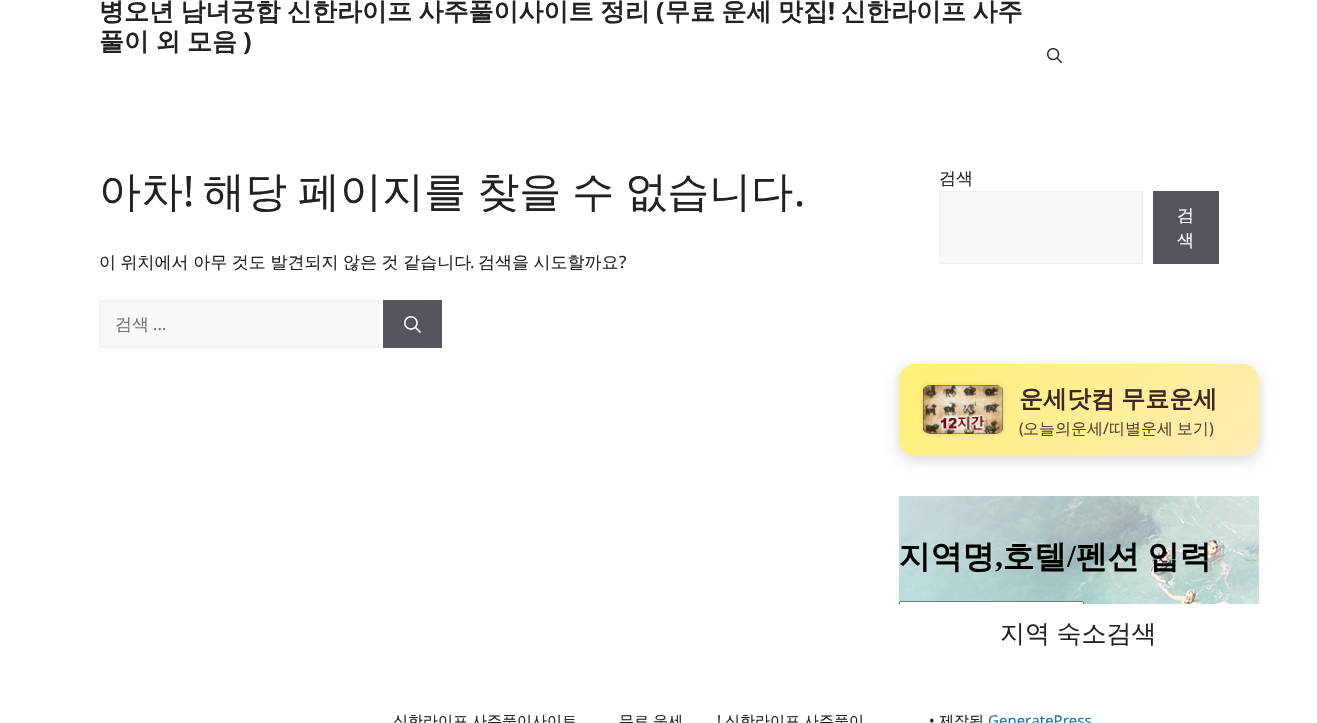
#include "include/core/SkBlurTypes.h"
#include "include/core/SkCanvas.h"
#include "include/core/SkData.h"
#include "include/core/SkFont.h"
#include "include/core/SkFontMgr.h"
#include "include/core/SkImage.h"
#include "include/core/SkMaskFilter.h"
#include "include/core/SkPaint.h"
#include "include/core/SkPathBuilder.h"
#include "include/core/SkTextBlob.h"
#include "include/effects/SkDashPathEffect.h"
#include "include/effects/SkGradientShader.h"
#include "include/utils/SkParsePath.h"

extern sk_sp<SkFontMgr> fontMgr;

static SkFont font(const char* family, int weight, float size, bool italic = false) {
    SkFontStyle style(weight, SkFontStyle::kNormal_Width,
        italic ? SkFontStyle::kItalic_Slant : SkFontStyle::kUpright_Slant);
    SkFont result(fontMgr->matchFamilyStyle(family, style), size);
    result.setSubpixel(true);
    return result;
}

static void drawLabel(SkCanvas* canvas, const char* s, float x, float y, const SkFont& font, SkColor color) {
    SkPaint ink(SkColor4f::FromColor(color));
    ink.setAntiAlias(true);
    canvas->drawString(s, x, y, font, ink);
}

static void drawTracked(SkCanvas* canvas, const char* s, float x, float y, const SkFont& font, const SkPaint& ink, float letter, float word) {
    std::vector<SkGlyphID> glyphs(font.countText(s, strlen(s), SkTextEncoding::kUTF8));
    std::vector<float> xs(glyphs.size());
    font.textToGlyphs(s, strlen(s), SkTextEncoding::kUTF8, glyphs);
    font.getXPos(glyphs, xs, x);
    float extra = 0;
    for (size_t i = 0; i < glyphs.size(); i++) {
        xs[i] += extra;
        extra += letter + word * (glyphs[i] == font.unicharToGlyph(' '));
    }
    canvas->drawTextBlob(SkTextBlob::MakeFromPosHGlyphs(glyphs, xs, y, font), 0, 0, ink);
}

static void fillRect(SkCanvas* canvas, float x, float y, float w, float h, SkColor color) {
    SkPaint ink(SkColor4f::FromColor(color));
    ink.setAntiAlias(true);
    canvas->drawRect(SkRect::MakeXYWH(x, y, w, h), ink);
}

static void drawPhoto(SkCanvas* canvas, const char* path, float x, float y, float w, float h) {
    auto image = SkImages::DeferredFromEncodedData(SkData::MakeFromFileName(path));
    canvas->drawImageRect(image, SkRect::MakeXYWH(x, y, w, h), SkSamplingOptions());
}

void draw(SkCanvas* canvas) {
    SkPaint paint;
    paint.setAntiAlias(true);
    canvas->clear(0xFFFFFFFF);
    SkFont font1 = font("WenQuanYi Zen Hei", 700, 25);
    paint.setColor(0xFF222222);
    drawTracked(canvas, "병오년 남녀궁합 신한라이프 사주풀이사이트 정리", 99, 20, font1, paint, 0, -1);
    SkFont font2 = font("Noto Sans", 700, 25);
    drawLabel(canvas, "(", 656, 20, font2, 0xFF222222);
    drawTracked(canvas, "무료 운세 맛집", 665, 20, font1, paint, 0, -1);
    drawLabel(canvas, "!", 828, 20, font2, 0xFF222222);
    drawTracked(canvas, "신한라이프 사주", 841, 20, font1, paint, 0, -1);
    drawTracked(canvas, "풀이 외 모음", 99, 50, font1, paint, 0, -1);
    drawLabel(canvas, ")", 243, 50, font2, 0xFF222222);
    drawPhoto(canvas, "assets/img1.png", 1047, 48, 15, 15);
    SkFont font3 = font("WenQuanYi Zen Hei", 500, 42);
    drawLabel(canvas, "아차", 99, 206, font3, 0xFF222222);
    SkFont font4 = font("Noto Sans", 400, 42);
    drawLabel(canvas, "!", 183, 206, font4, 0xFF222222);
    drawTracked(canvas, "해당 페이지를 찾을 수 없습니다", 203, 206, font3, paint, 0, -1.5f);
    drawLabel(canvas, ".", 794, 206, font4, 0xFF222222);
    SkFont font5 = font("WenQuanYi Zen Hei", 500, 17);
    drawTracked(canvas, "이 위치에서 아무 것도 발견되지 않은 것 같습니다", 99, 268, font5, paint, 0, -0.5f);
    SkFont font6 = font("Noto Sans", 400, 17);
    drawLabel(canvas, ".", 470, 268, font6, 0xFF222222);
    drawTracked(canvas, "검색을 시도할까요", 478, 268, font5, paint, 0, -0.5f);
    drawLabel(canvas, "?", 619, 268, font6, 0xFF222222);
    paint.setColor(0xFFF7F8F9);
    canvas->drawRect(SkRect::MakeXYWH(99.5f, 300.5f, 279, 47), paint);
    paint.setStroke(true);
    paint.setStrokeWidth(1);
    paint.setColor(0xFFF0F0F0);
    canvas->drawRect(SkRect::MakeXYWH(99.5f, 300.5f, 279, 47), paint);
    drawLabel(canvas, "검색", 115, 330, font5, 0xFF757575);
    drawLabel(canvas, "…", 153, 330, font6, 0xFF757575);
    fillRect(canvas, 383, 300, 59, 48, 0xFF55555E);
    drawPhoto(canvas, "assets/img2.png", 404, 316, 17, 17);
    drawLabel(canvas, "검색", 939, 184, font5, 0xFF222222);
    paint.setStroke(false);
    paint.setColor(0xFFF7F8F9);
    canvas->drawRect(SkRect::MakeXYWH(939.5f, 191.5f, 203, 72), paint);
    paint.setStroke(true);
    paint.setColor(0xFFF0F0F0);
    canvas->drawRect(SkRect::MakeXYWH(939.5f, 191.5f, 203, 72), paint);
    fillRect(canvas, 1153, 191, 66, 73, 0xFF55555E);
    drawLabel(canvas, "검", 1177, 221, font5, 0xFFFFFFFF);
    drawLabel(canvas, "색", 1177, 246, font5, 0xFFFFFFFF);
    paint.setStroke(false);
    paint.setColor(0x26000000);
    paint.setMaskFilter(SkMaskFilter::MakeBlur(kNormal_SkBlurStyle, 7));
    canvas->drawRoundRect(SkRect::MakeXYWH(899, 368, 360, 92), 16, 16, paint);
    paint.setMaskFilter(nullptr);
    {
        const SkColor colors[] = {0xFFFFF176, 0xFFFFECB3};
        const float stops[] = {0, 1};
        const SkPoint ends[] = {{966, 297}, {1192, 523}};
        paint.setShader(SkGradientShader::MakeLinear(ends, colors, stops, 2, SkTileMode::kClamp));
        paint.setAlpha(255);
    }
    canvas->drawRoundRect(SkRect::MakeXYWH(899, 364, 360, 92), 16, 16, paint);
    paint.setShader(nullptr);
    paint.setColor(0x1A000000);
    paint.setMaskFilter(SkMaskFilter::MakeBlur(kNormal_SkBlurStyle, 2.5f));
    canvas->drawRoundRect(SkRect::MakeXYWH(923, 385, 80, 49), 5, 5, paint);
    paint.setMaskFilter(nullptr);
    drawPhoto(canvas, "assets/img3.png", 923, 385, 80, 49);
    SkFont font7 = font("WenQuanYi Zen Hei", 700, 24);
    paint.setColor(0xFF3E2723);
    drawTracked(canvas, "운세닷컴 무료운세", 1019, 407, font7, paint, 0, -1);
    SkFont font8 = font("Noto Sans", 400, 16);
    drawLabel(canvas, "(", 1019, 434, font8, 0xFF5D4037);
    SkFont font9 = font("WenQuanYi Zen Hei", 500, 16);
    drawLabel(canvas, "오늘의운세", 1023, 434, font9, 0xFF5D4037);
    drawLabel(canvas, "/", 1103, 434, font8, 0xFF5D4037);
    paint.setColor(0xFF5D4037);
    drawTracked(canvas, "띠별운세 보기", 1109, 434, font9, paint, 0, -1);
    drawLabel(canvas, ")", 1209, 434, font8, 0xFF5D4037);
    drawPhoto(canvas, "assets/img4.png", 899, 496, 360, 108);
    SkFont font10 = font("WenQuanYi Zen Hei", 500, 25);
    paint.setColor(0xFF222222);
    drawTracked(canvas, "지역 숙소검색", 1000, 642, font10, paint, 0, -1);
    SkFont font11 = font("WenQuanYi Zen Hei", 500, 15);
    drawLabel(canvas, "신한라이프", 393, 726, font11, 0xFF222222);
    drawLabel(canvas, "사주풀이사이트", 472, 726, font11, 0xFF222222);
    drawLabel(canvas, "무료", 619, 726, font11, 0xFF222222);
    drawLabel(canvas, "운세", 653, 726, font11, 0xFF222222);
    SkFont font12 = font("Noto Sans", 400, 15);
    drawLabel(canvas, "!", 717, 726, font12, 0xFF222222);
    drawLabel(canvas, "신한라이프", 725, 726, font11, 0xFF222222);
    drawLabel(canvas, "사주풀이", 804, 726, font11, 0xFF222222);
    drawLabel(canvas, "•", 929, 726, font12, 0xFF222222);
    drawLabel(canvas, "제작됨", 939, 726, font11, 0xFF222222);
    drawLabel(canvas, "GeneratePress", 988, 726, font12, 0xFF1E73BE);
}
